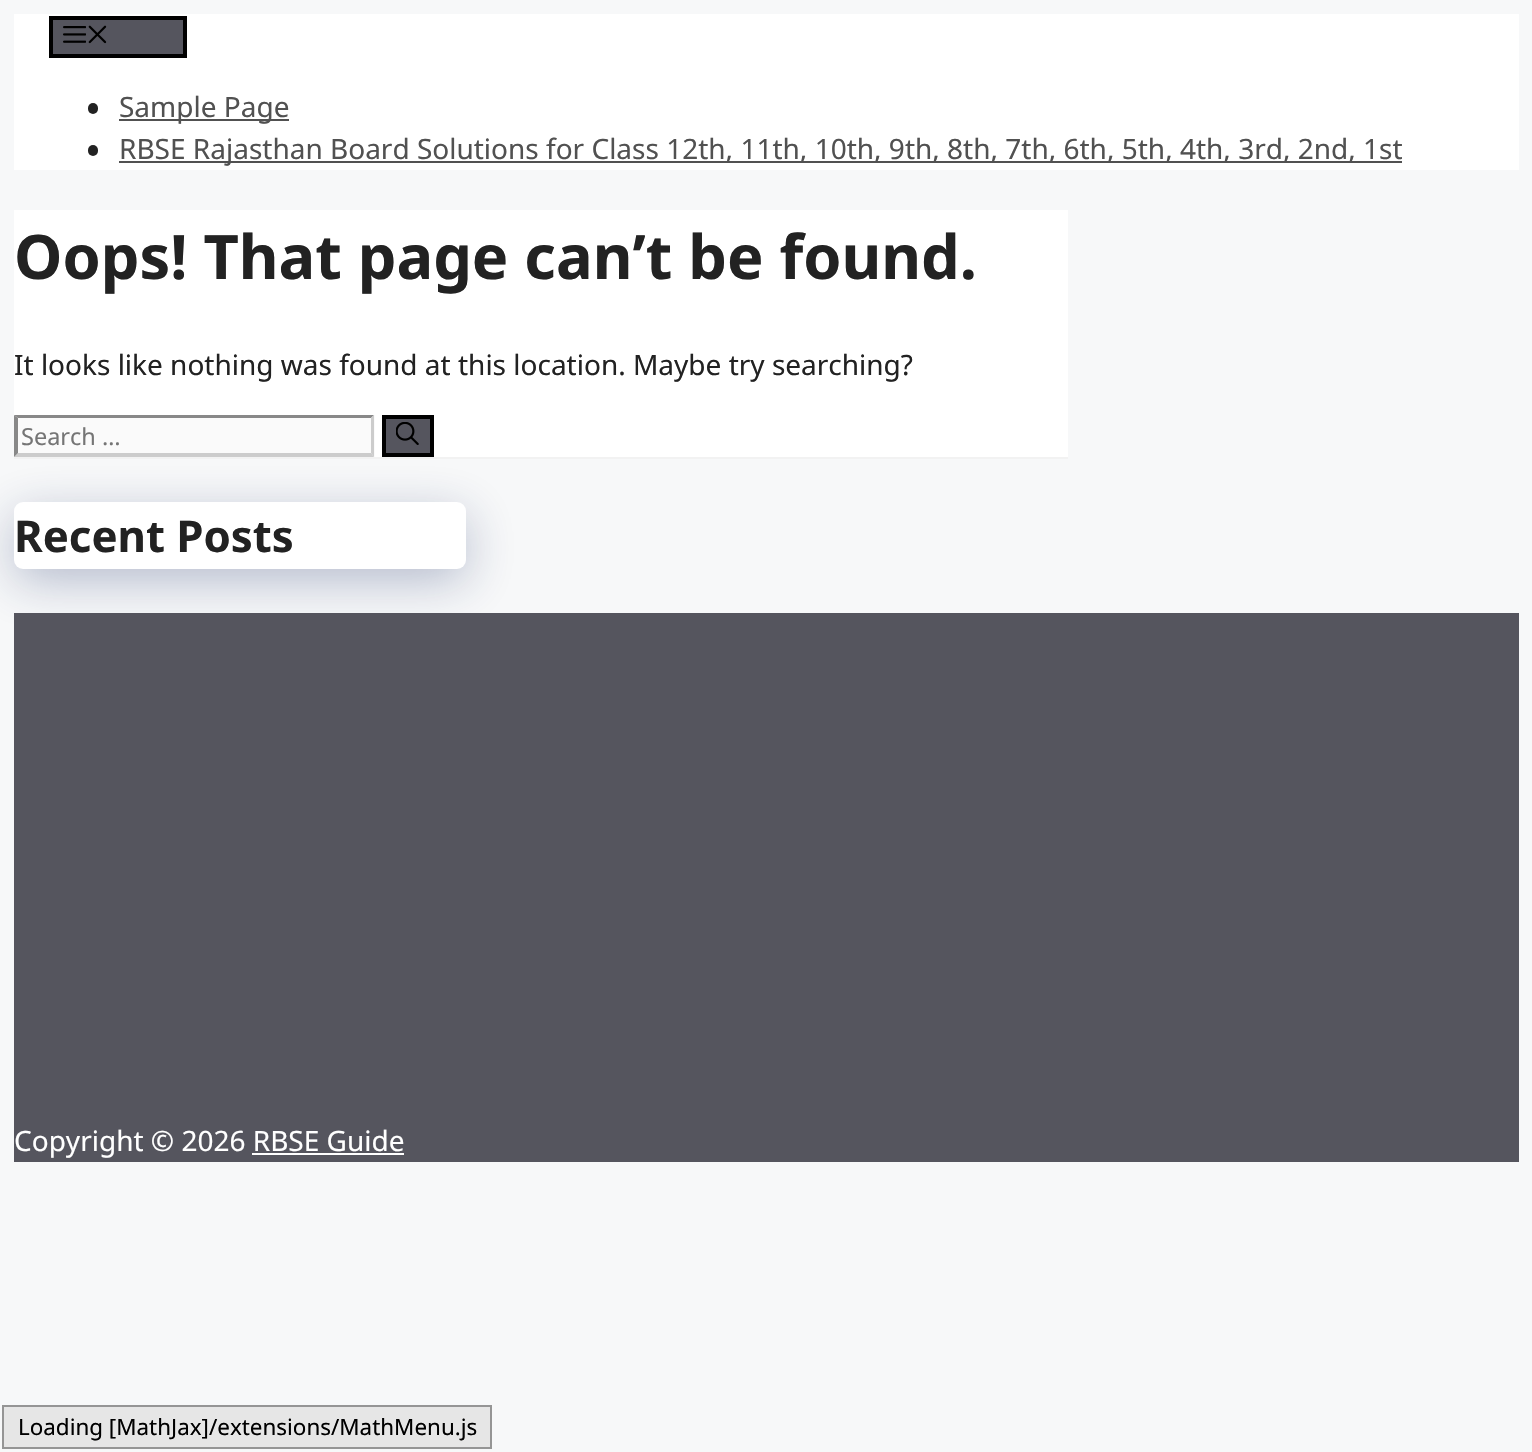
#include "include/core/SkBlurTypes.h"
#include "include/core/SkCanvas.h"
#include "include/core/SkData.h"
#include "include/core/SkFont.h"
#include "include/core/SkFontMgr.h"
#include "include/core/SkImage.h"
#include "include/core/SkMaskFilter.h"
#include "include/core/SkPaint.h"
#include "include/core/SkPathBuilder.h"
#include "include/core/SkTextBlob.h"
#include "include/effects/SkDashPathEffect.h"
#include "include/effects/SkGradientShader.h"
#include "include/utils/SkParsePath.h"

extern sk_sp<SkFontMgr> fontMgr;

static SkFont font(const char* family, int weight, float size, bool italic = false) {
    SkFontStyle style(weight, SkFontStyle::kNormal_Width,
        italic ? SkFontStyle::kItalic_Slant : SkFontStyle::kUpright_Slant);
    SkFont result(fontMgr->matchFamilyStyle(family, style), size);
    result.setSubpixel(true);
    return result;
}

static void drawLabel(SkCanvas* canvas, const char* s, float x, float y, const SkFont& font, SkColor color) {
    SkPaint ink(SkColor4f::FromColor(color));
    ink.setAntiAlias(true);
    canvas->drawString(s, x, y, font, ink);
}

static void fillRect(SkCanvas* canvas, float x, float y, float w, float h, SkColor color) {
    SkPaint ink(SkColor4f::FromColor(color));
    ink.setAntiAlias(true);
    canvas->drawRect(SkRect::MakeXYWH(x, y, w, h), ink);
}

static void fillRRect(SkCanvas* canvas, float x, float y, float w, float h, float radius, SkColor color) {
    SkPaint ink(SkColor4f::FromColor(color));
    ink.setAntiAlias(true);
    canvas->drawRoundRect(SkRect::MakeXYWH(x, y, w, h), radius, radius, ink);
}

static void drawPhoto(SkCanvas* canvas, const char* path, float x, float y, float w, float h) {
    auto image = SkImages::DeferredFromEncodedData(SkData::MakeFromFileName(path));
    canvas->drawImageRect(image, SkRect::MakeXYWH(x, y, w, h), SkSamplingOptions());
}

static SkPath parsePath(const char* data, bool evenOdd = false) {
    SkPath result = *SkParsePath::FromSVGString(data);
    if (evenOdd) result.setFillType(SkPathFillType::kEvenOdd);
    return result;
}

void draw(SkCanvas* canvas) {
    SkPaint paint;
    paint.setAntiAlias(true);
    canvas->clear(0xFFF7F8F9);
    fillRect(canvas, 14, 14, 1505, 156, 0xFFFFFFFF);
    paint.setColor(0xFF55555E);
    canvas->drawRect(SkRect::MakeXYWH(51, 18, 134, 38), paint);
    paint.setStroke(true);
    paint.setStrokeWidth(4);
    paint.setColor(0xFF000000);
    canvas->drawRect(SkRect::MakeXYWH(51, 18, 134, 38), paint);
    drawPhoto(canvas, "assets/img1.png", 63, 26, 23, 17);
    drawPhoto(canvas, "assets/img2.png", 88, 25, 19, 19);
    fillRRect(canvas, 88, 103, 10, 11, 5, 0xFF222222);
    fillRect(canvas, 119, 119, 170, 2, 0xFF515151);
    SkFont font1 = font("Noto Sans", 400, 28);
    drawLabel(canvas, "Sample Page", 119, 117, font1, 0xFF515151);
    fillRRect(canvas, 88, 145, 10, 11, 5, 0xFF222222);
    fillRect(canvas, 119, 161, 1283, 2, 0xFF515151);
    drawLabel(canvas, "RBSE Rajasthan Board Solutions for Class 12th, 11th, 10th, 9th, 8th, 7th, 6th, 5th, 4th, 3rd, 2nd, 1st", 119, 159, font1, 0xFF515151);
    fillRect(canvas, 14, 210, 1054, 247, 0xFFFFFFFF);
    fillRect(canvas, 14, 457, 1054, 2, 0xFFF2F2F2);
    SkFont font2 = font("Noto Sans", 700, 61.25f);
    drawLabel(canvas, "Oops! That page can’t be found.", 14, 279, font2, 0xFF222222);
    drawLabel(canvas, "It looks like nothing was found at this location. Maybe try searching?", 14, 375, font1, 0xFF222222);
    paint.setStroke(false);
    paint.setColor(0x4D172B63);
    paint.setMaskFilter(SkMaskFilter::MakeBlur(kNormal_SkBlurStyle, 24.5f));
    canvas->drawRoundRect(SkRect::MakeXYWH(14, 515, 452, 66), 9, 9, paint);
    paint.setMaskFilter(nullptr);
    fillRect(canvas, 14, 415, 361, 42, 0xFFFAFAFA);
    paint.setColor(0xFF888888);
    canvas->drawPath(parsePath("M14 415H374L371 418H18Z"), paint);
    paint.setColor(0xFFCCCCCC);
    canvas->drawPath(parsePath("M374 415V457L371 453V418Z"), paint);
    canvas->drawPath(parsePath("M374 457H14L18 453H371Z"), paint);
    paint.setColor(0xFF888888);
    canvas->drawPath(parsePath("M14 457V415L18 418V453Z"), paint);
    SkFont font3 = font("Noto Sans", 400, 23.5f);
    drawLabel(canvas, "Search …", 21, 445, font3, 0xFF757575);
    paint.setColor(0xFF55555E);
    canvas->drawRect(SkRect::MakeXYWH(384, 417, 48, 38), paint);
    paint.setStroke(true);
    paint.setColor(0xFF000000);
    canvas->drawRect(SkRect::MakeXYWH(384, 417, 48, 38), paint);
    drawPhoto(canvas, "assets/img3.png", 396, 422, 23, 23);
    fillRRect(canvas, 14, 502, 452, 67, 9, 0xFFFFFFFF);
    SkFont font4 = font("Noto Sans", 700, 43.75f);
    drawLabel(canvas, "Recent Posts", 14, 552, font4, 0xFF222222);
    fillRect(canvas, 14, 613, 1505, 549, 0xFF55555E);
    drawLabel(canvas, "Copyright © 2026 RBSE Guide", 14, 1151, font1, 0xFFFFFFFF);
    fillRect(canvas, 252, 1153, 152, 2, 0xFFFFFFFF);
    paint.setStroke(false);
    paint.setColor(0xFFE6E6E6);
    canvas->drawRect(SkRect::MakeXYWH(3, 1406, 488, 42), paint);
    paint.setStroke(true);
    paint.setStrokeWidth(2);
    paint.setColor(0xFF959595);
    canvas->drawRect(SkRect::MakeXYWH(3, 1406, 488, 42), paint);
    SkFont font5 = font("Noto Sans", 400, 22.4f);
    drawLabel(canvas, "Loading [MathJax]/extensions/MathMenu.js", 18, 1435, font5, 0xFF000000);
}
